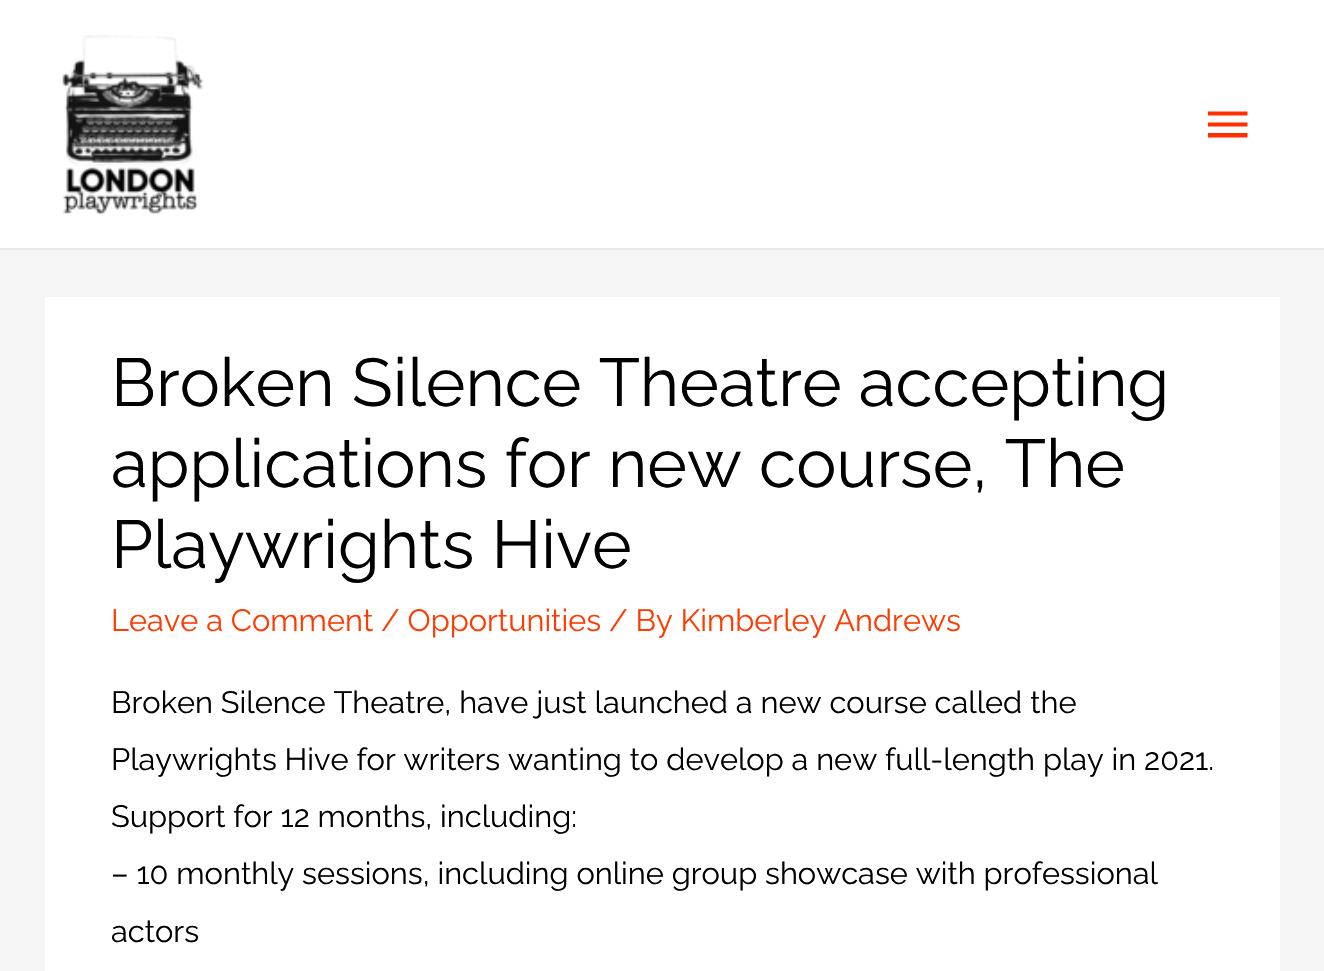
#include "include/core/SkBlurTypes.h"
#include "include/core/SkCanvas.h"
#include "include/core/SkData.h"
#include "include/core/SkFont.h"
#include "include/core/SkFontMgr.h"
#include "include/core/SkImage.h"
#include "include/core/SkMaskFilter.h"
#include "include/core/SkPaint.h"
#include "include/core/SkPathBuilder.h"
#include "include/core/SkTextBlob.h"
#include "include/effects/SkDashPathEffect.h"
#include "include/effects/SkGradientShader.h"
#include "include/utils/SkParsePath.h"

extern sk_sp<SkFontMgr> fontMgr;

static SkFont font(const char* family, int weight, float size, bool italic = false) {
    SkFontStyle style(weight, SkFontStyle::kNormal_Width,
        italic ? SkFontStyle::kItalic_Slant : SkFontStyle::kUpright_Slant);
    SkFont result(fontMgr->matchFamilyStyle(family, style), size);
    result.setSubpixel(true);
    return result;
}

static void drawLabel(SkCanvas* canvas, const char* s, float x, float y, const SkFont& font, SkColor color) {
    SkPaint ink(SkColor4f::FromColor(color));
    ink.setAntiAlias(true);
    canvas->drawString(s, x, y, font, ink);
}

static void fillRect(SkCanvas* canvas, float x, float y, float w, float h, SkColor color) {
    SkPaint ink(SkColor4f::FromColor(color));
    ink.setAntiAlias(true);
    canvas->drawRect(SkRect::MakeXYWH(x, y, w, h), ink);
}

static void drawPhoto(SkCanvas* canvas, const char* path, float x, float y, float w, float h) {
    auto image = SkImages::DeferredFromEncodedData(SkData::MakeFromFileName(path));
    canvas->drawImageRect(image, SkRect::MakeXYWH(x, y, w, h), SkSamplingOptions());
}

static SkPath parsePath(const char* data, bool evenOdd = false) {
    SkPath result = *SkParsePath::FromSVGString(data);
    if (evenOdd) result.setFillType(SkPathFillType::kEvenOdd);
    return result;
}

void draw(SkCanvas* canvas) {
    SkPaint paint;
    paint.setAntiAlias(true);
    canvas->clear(0xFFF5F5F5);
    fillRect(canvas, 0, 248, 1324, 2, 0xFFEAEAEA);
    fillRect(canvas, 0, 0, 1324, 248, 0xFFFFFFFF);
    drawPhoto(canvas, "assets/img1.png", 62, 35, 142, 180);
    paint.setColor(0xFFFF2D00);
    canvas->drawPath(parsePath("M1208 111.5H1247.5V115.5H1208ZM1208 126.5V122.5H1247.5V126.5ZM1208 137.5V133H1247.5V137.5Z"), paint);
    fillRect(canvas, 45, 297, 1235, 674, 0xFFFFFFFF);
    SkFont font1 = font("Raleway", 100, 67.5f);
    drawLabel(canvas, "Broken Silence Theatre accepting", 111, 406, font1, 0xFF000000);
    drawLabel(canvas, "applications for new course, The", 111, 487, font1, 0xFF000000);
    drawLabel(canvas, "Playwrights Hive", 111, 568, font1, 0xFF000000);
    SkFont font2 = font("Raleway", 100, 30.8f);
    drawLabel(canvas, "Leave a Comment / Opportunities / By Kimberley Andrews", 111, 631, font2, 0xFFFF3B00);
    drawLabel(canvas, "Broken Silence Theatre, have just launched a new course called the", 111, 713, font2, 0xFF000000);
    drawLabel(canvas, "Playwrights Hive for writers wanting to develop a new full-length play in 2021.", 111, 770, font2, 0xFF000000);
    drawLabel(canvas, "Support for 12 months, including:", 111, 827, font2, 0xFF000000);
    drawLabel(canvas, "– 10 monthly sessions, including online group showcase with professional", 111, 884, font2, 0xFF000000);
    drawLabel(canvas, "actors", 111, 942, font2, 0xFF000000);
}
